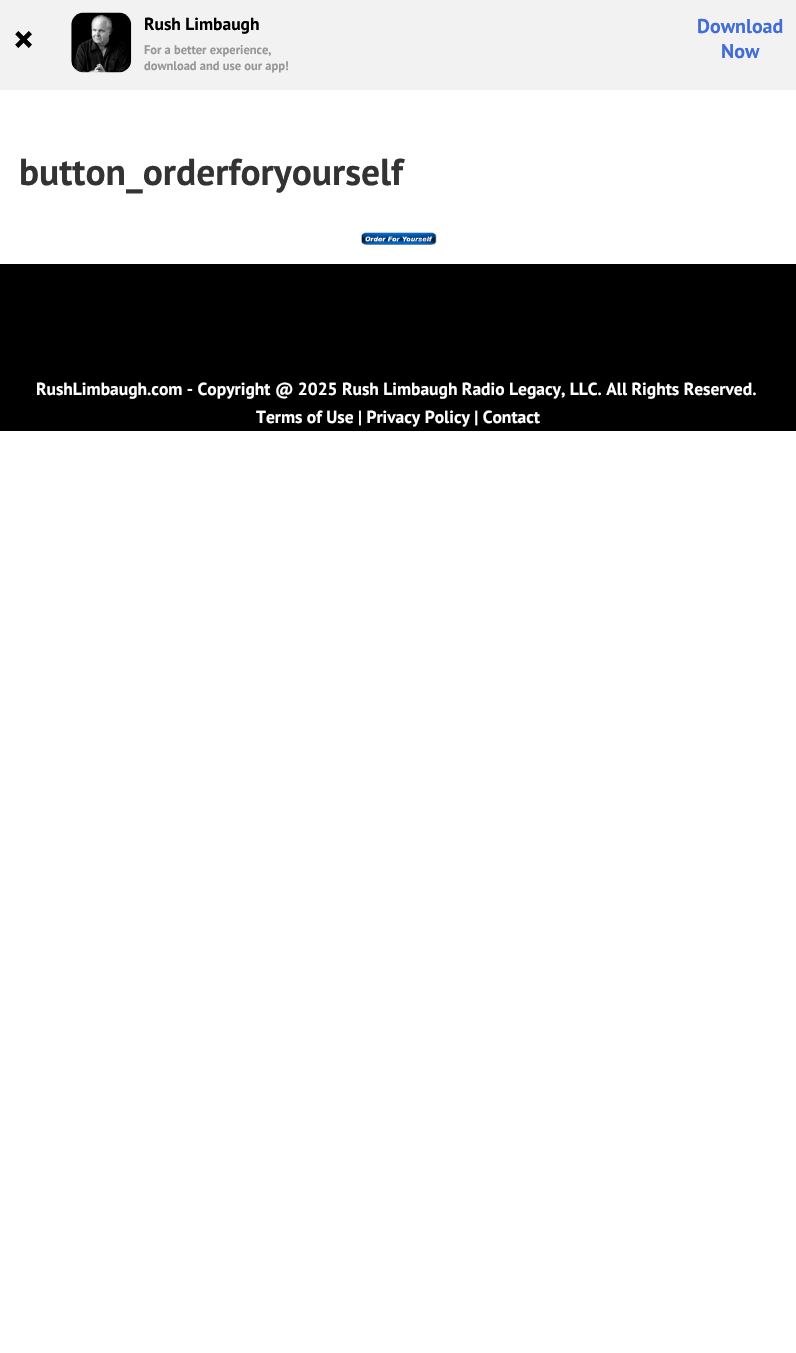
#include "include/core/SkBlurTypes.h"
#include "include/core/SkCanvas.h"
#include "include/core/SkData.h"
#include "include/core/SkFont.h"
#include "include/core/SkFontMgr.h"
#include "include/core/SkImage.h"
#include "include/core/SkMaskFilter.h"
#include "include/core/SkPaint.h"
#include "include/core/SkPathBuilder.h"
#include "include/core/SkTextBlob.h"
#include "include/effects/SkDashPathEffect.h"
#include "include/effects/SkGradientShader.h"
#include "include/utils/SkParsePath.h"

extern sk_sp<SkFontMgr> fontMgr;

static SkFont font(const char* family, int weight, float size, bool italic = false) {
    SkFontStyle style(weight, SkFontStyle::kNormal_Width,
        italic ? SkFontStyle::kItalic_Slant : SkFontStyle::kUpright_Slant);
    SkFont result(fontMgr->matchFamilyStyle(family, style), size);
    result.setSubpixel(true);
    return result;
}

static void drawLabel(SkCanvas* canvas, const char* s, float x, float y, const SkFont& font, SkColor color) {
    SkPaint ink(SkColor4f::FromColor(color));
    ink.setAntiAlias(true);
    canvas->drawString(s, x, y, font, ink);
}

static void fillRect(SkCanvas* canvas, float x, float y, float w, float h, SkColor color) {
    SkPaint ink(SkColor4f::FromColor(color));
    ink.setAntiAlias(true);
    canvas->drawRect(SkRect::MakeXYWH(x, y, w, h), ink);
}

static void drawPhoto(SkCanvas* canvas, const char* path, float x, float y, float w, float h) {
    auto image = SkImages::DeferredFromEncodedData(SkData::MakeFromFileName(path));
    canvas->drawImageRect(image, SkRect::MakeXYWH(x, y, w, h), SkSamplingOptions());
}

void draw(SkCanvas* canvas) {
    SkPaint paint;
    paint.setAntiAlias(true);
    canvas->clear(0xFFFFFFFF);
    fillRect(canvas, 0, 0, 796, 90, 0xFFF2F2F2);
    SkFont font1 = font("PT Sans", 700, 40);
    drawLabel(canvas, "×", 13, 53, font1, 0xFF000000);
    drawPhoto(canvas, "assets/img1.png", 71, 12, 61, 61);
    SkFont font2 = font("PT Sans", 700, 17.5f);
    drawLabel(canvas, "Rush Limbaugh", 144, 30, font2, 0xFF000000);
    SkFont font3 = font("PT Sans", 700, 12.5f);
    drawLabel(canvas, "For a better experience,", 144, 54, font3, 0xFF979797);
    drawLabel(canvas, "download and use our app!", 144, 70, font3, 0xFF979797);
    SkFont font4 = font("PT Sans", 700, 20);
    drawLabel(canvas, "Download", 697, 33, font4, 0xFF436DD6);
    drawLabel(canvas, "Now", 721, 58, font4, 0xFF436DD6);
    SkFont font5 = font("PT Sans", 700, 37.5f);
    drawLabel(canvas, "button_orderforyourself", 19, 185, font5, 0xFF333333);
    drawPhoto(canvas, "assets/img2.png", 361, 232, 76, 13);
    fillRect(canvas, 0, 264, 796, 167, 0xFF000000);
    drawLabel(canvas, "RushLimbaugh.com - Copyright @ 2025 Rush Limbaugh Radio Legacy, LLC. All Rights Reserved.", 36, 395, font2, 0xFFFFFFFF);
    drawLabel(canvas, "Terms of Use | Privacy Policy | Contact", 256, 423, font2, 0xFFFFFFFF);
}
